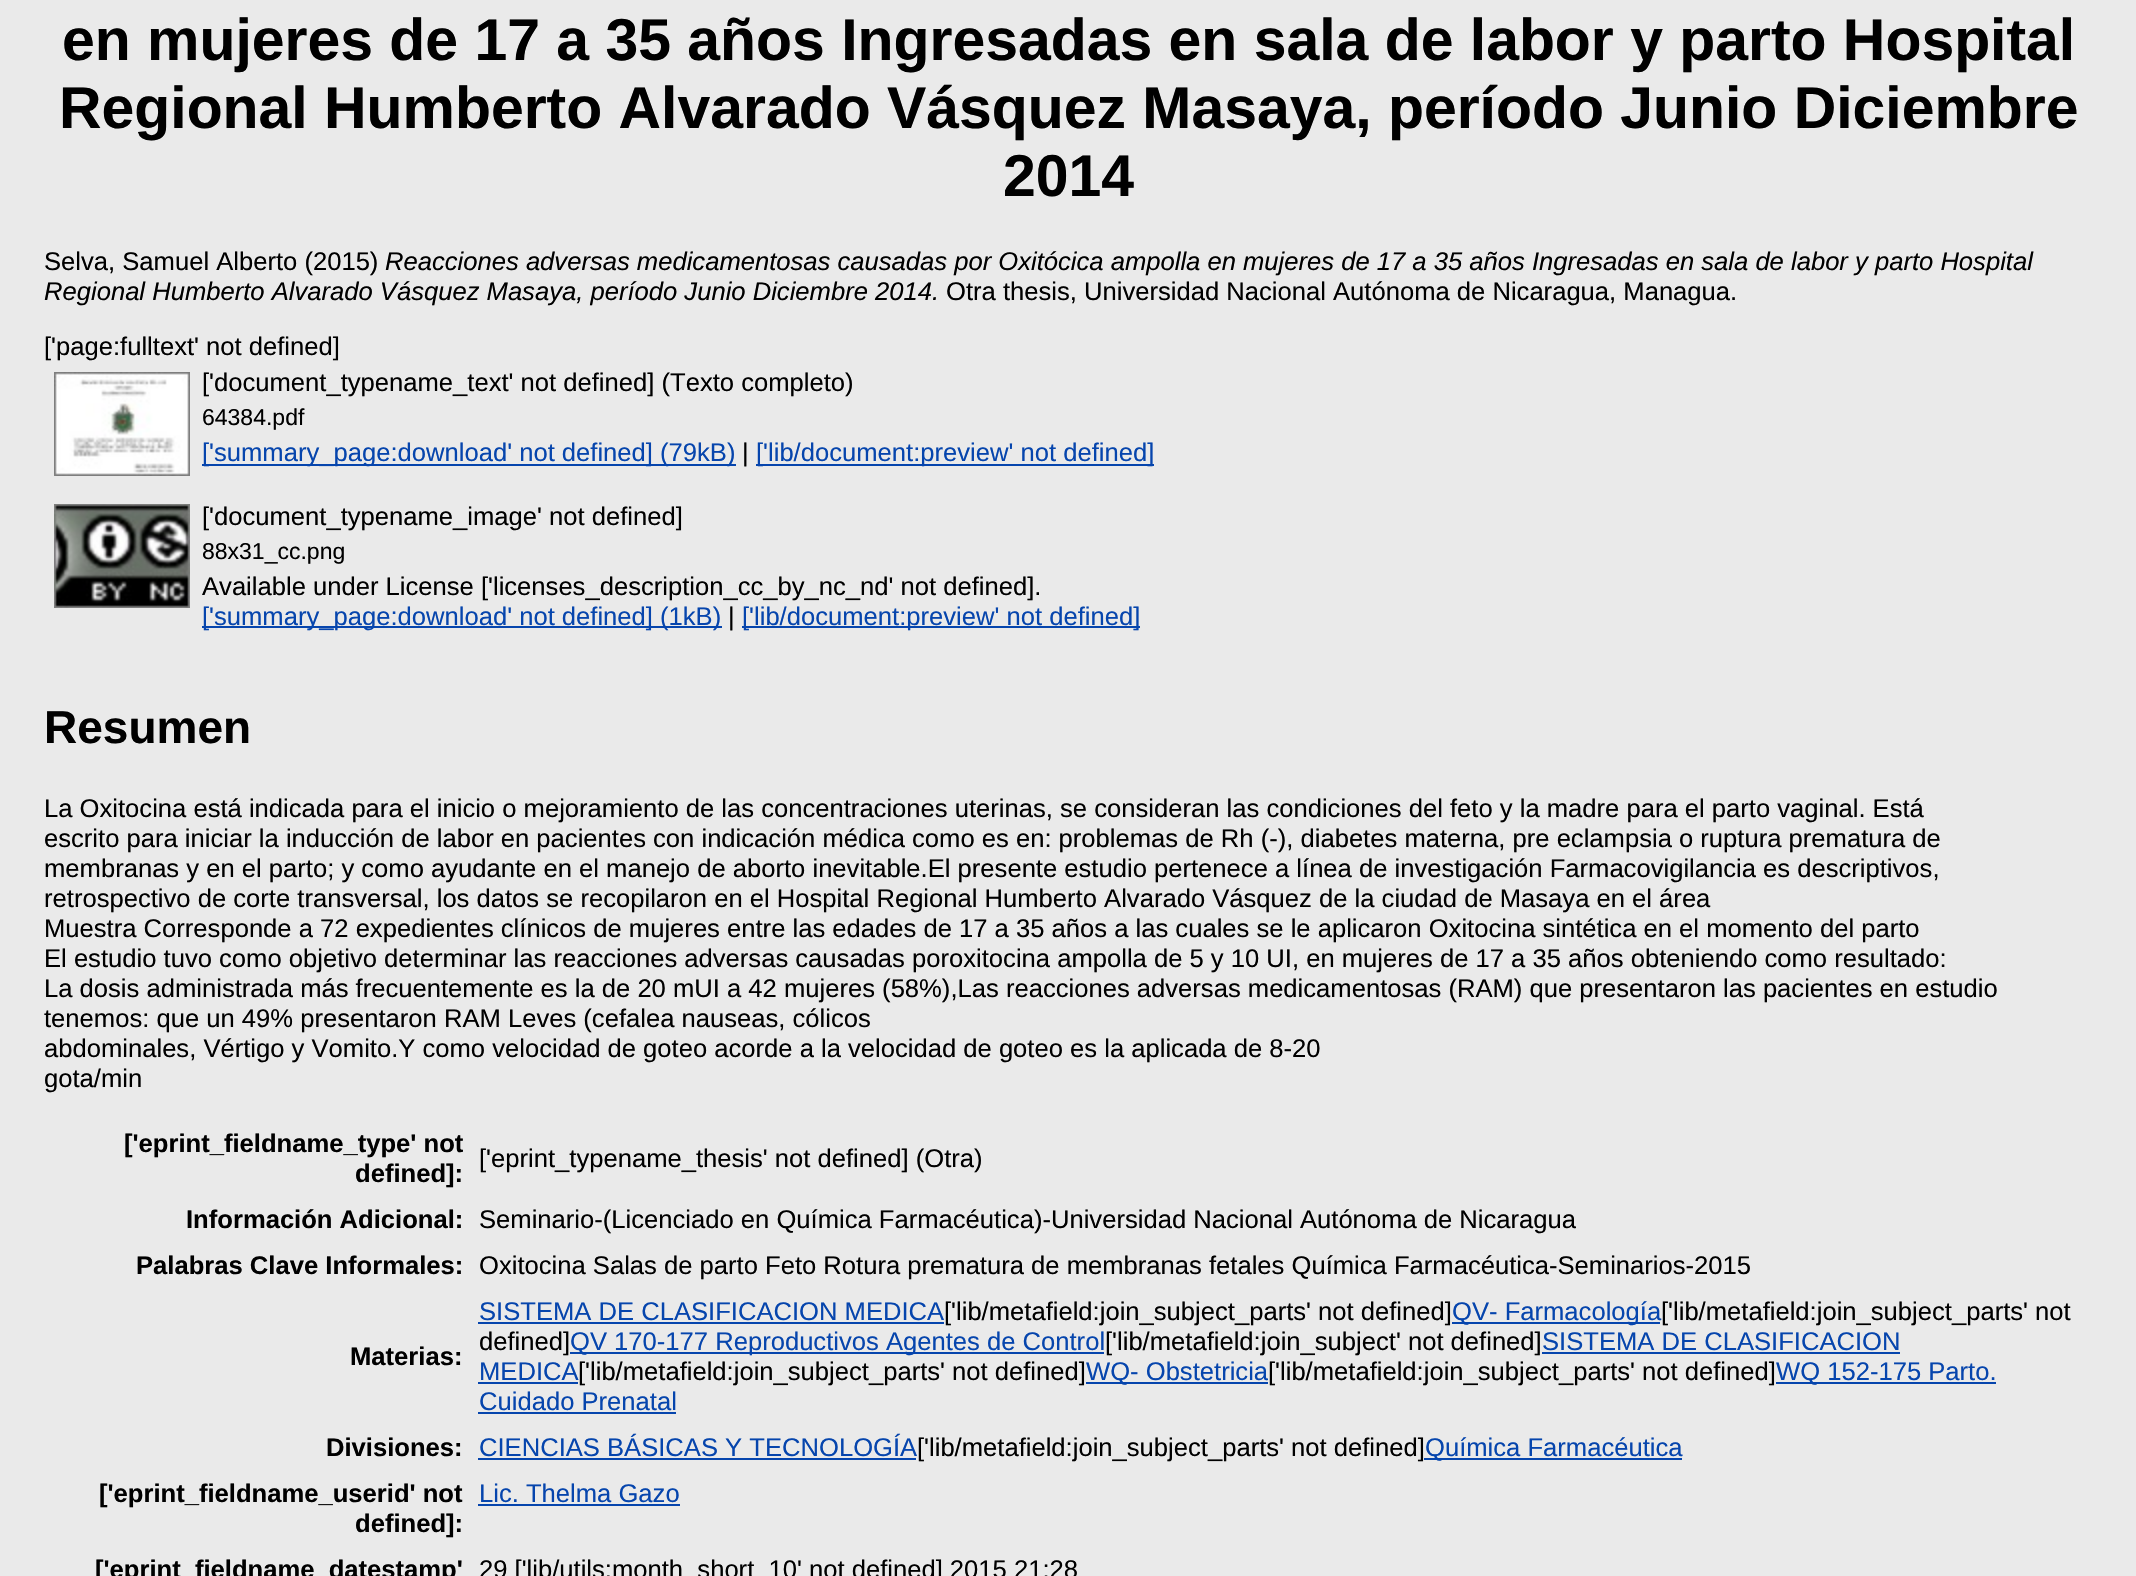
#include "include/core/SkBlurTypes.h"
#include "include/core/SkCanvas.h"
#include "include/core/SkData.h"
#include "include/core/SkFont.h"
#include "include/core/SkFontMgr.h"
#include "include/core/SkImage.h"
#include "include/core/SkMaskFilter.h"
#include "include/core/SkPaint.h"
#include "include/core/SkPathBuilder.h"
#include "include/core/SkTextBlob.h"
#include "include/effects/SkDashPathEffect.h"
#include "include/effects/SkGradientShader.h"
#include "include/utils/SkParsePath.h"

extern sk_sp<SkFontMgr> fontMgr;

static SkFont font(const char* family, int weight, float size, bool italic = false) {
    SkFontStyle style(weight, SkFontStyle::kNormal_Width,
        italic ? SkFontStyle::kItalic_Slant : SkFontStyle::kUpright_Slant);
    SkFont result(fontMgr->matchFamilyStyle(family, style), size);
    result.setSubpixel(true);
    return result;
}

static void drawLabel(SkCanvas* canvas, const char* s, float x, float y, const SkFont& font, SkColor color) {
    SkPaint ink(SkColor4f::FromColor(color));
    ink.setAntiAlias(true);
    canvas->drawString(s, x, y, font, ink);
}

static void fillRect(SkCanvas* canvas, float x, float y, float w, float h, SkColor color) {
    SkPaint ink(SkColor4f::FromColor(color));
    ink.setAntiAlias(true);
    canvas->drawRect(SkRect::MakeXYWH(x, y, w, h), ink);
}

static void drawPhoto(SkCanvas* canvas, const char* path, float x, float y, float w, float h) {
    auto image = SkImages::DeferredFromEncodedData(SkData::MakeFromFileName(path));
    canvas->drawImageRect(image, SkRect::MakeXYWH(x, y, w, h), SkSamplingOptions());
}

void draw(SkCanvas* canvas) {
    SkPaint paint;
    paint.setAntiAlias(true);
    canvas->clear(0xFFEAEAEA);
    SkFont font1 = font("Liberation Sans", 700, 58.9f);
    drawLabel(canvas, "en mujeres de 17 a 35 años Ingresadas en sala de labor y parto Hospital", 62, 60, font1, 0xFF000000);
    drawLabel(canvas, "Regional Humberto Alvarado Vásquez Masaya, período Junio Diciembre", 59, 128, font1, 0xFF000000);
    drawLabel(canvas, "2014", 1003, 196, font1, 0xFF000000);
    SkFont font2 = font("Liberation Sans", 400, 25.6f);
    drawLabel(canvas, "Selva, Samuel Alberto (2015)", 44, 270, font2, 0xFF000000);
    SkFont font3 = font("Liberation Sans", 400, 25.6f, true);
    drawLabel(canvas, "Reacciones adversas medicamentosas causadas por Oxitócica ampolla en mujeres de 17 a 35 años Ingresadas en sala de labor y parto Hospital", 385, 270, font3, 0xFF000000);
    drawLabel(canvas, "Regional Humberto Alvarado Vásquez Masaya, período Junio Diciembre 2014.", 44, 300, font3, 0xFF000000);
    drawLabel(canvas, "Otra thesis, Universidad Nacional Autónoma de Nicaragua, Managua.", 946, 300, font2, 0xFF000000);
    drawLabel(canvas, "['page:fulltext' not defined]", 44, 355, font2, 0xFF000000);
    drawPhoto(canvas, "assets/img1.png", 54, 372, 136, 104);
    drawLabel(canvas, "['document_typename_text' not defined] (Texto completo)", 202, 391, font2, 0xFF000000);
    SkFont font4 = font("Liberation Sans", 400, 23);
    drawLabel(canvas, "64384.pdf", 202, 425, font4, 0xFF000000);
    fillRect(canvas, 202, 464, 534, 2, 0xFF0645AD);
    drawLabel(canvas, "['summary_page:download' not defined] (79kB)", 202, 461, font2, 0xFF0645AD);
    drawLabel(canvas, "|", 742, 461, font2, 0xFF000000);
    fillRect(canvas, 756, 464, 398, 2, 0xFF0645AD);
    drawLabel(canvas, "['lib/document:preview' not defined]", 756, 461, font2, 0xFF0645AD);
    drawPhoto(canvas, "assets/img2.png", 54, 504, 136, 104);
    drawLabel(canvas, "['document_typename_image' not defined]", 202, 525, font2, 0xFF000000);
    drawLabel(canvas, "88x31_cc.png", 202, 559, font4, 0xFF000000);
    drawLabel(canvas, "Available under License ['licenses_description_cc_by_nc_nd' not defined].", 202, 595, font2, 0xFF000000);
    fillRect(canvas, 202, 626, 520, 2, 0xFF0645AD);
    drawLabel(canvas, "['summary_page:download' not defined] (1kB)", 202, 625, font2, 0xFF0645AD);
    drawLabel(canvas, "|", 728, 625, font2, 0xFF000000);
    fillRect(canvas, 742, 626, 398, 2, 0xFF0645AD);
    drawLabel(canvas, "['lib/document:preview' not defined]", 742, 625, font2, 0xFF0645AD);
    SkFont font5 = font("Liberation Sans", 700, 46);
    drawLabel(canvas, "Resumen", 44, 743, font5, 0xFF000000);
    drawLabel(canvas, "La Oxitocina está indicada para el inicio o mejoramiento de las concentraciones uterinas, se consideran las condiciones del feto y la madre para el parto vaginal. Está", 44, 817, font2, 0xFF000000);
    drawLabel(canvas, "escrito para iniciar la inducción de labor en pacientes con indicación médica como es en: problemas de Rh (-), diabetes materna, pre eclampsia o ruptura prematura de", 44, 847, font2, 0xFF000000);
    drawLabel(canvas, "membranas y en el parto; y como ayudante en el manejo de aborto inevitable.El presente estudio pertenece a línea de investigación Farmacovigilancia es descriptivos,", 44, 877, font2, 0xFF000000);
    drawLabel(canvas, "retrospectivo de corte transversal, los datos se recopilaron en el Hospital Regional Humberto Alvarado Vásquez de la ciudad de Masaya en el área", 44, 907, font2, 0xFF000000);
    drawLabel(canvas, "Muestra Corresponde a 72 expedientes clínicos de mujeres entre las edades de 17 a 35 años a las cuales se le aplicaron Oxitocina sintética en el momento del parto", 44, 937, font2, 0xFF000000);
    drawLabel(canvas, "El estudio tuvo como objetivo determinar las reacciones adversas causadas poroxitocina ampolla de 5 y 10 UI, en mujeres de 17 a 35 años obteniendo como resultado:", 44, 967, font2, 0xFF000000);
    drawLabel(canvas, "La dosis administrada más frecuentemente es la de 20 mUI a 42 mujeres (58%),Las reacciones adversas medicamentosas (RAM) que presentaron las pacientes en estudio", 44, 997, font2, 0xFF000000);
    drawLabel(canvas, "tenemos: que un 49% presentaron RAM Leves (cefalea nauseas, cólicos", 44, 1027, font2, 0xFF000000);
    drawLabel(canvas, "abdominales, Vértigo y Vomito.Y como velocidad de goteo acorde a la velocidad de goteo es la aplicada de 8-20", 44, 1057, font2, 0xFF000000);
    drawLabel(canvas, "gota/min", 44, 1087, font2, 0xFF000000);
    SkFont font6 = font("Liberation Sans", 700, 25.6f);
    drawLabel(canvas, "['eprint_fieldname_type' not", 124, 1152, font6, 0xFF000000);
    drawLabel(canvas, "defined]:", 355, 1182, font6, 0xFF000000);
    drawLabel(canvas, "['eprint_typename_thesis' not defined] (Otra)", 479, 1167, font2, 0xFF000000);
    drawLabel(canvas, "Información Adicional:", 186, 1228, font6, 0xFF000000);
    drawLabel(canvas, "Seminario-(Licenciado en Química Farmacéutica)-Universidad Nacional Autónoma de Nicaragua", 479, 1228, font2, 0xFF000000);
    drawLabel(canvas, "Palabras Clave Informales:", 136, 1274, font6, 0xFF000000);
    drawLabel(canvas, "Oxitocina Salas de parto Feto Rotura prematura de membranas fetales Química Farmacéutica-Seminarios-2015", 479, 1274, font2, 0xFF000000);
    drawLabel(canvas, "Materias:", 350, 1365, font6, 0xFF000000);
    drawLabel(canvas, "SISTEMA DE CLASIFICACION MEDICA", 479, 1320, font2, 0xFF0645AD);
    fillRect(canvas, 478, 1322, 466, 2, 0xFF0645AD);
    drawLabel(canvas, "['lib/metafield:join_subject_parts' not defined]", 944, 1320, font2, 0xFF000000);
    fillRect(canvas, 1452, 1322, 208, 2, 0xFF0645AD);
    drawLabel(canvas, "QV- Farmacología", 1452, 1320, font2, 0xFF0645AD);
    drawLabel(canvas, "['lib/metafield:join_subject_parts' not", 1661, 1320, font2, 0xFF000000);
    drawLabel(canvas, "defined]", 479, 1350, font2, 0xFF000000);
    fillRect(canvas, 570, 1352, 534, 2, 0xFF0645AD);
    drawLabel(canvas, "QV 170-177 Reproductivos Agentes de Control", 570, 1350, font2, 0xFF0645AD);
    drawLabel(canvas, "['lib/metafield:join_subject' not defined]", 1105, 1350, font2, 0xFF000000);
    drawLabel(canvas, "SISTEMA DE CLASIFICACION", 1542, 1350, font2, 0xFF0645AD);
    fillRect(canvas, 1542, 1352, 358, 2, 0xFF0645AD);
    drawLabel(canvas, "MEDICA", 479, 1380, font2, 0xFF0645AD);
    fillRect(canvas, 478, 1382, 100, 2, 0xFF0645AD);
    drawLabel(canvas, "['lib/metafield:join_subject_parts' not defined]", 578, 1380, font2, 0xFF000000);
    fillRect(canvas, 1086, 1382, 182, 2, 0xFF0645AD);
    drawLabel(canvas, "WQ- Obstetricia", 1086, 1380, font2, 0xFF0645AD);
    drawLabel(canvas, "['lib/metafield:join_subject_parts' not defined]", 1268, 1380, font2, 0xFF000000);
    fillRect(canvas, 1776, 1382, 220, 2, 0xFF0645AD);
    drawLabel(canvas, "WQ 152-175 Parto.", 1776, 1380, font2, 0xFF0645AD);
    drawLabel(canvas, "Cuidado Prenatal", 479, 1410, font2, 0xFF0645AD);
    fillRect(canvas, 478, 1412, 198, 2, 0xFF0645AD);
    drawLabel(canvas, "Divisiones:", 326, 1456, font6, 0xFF000000);
    drawLabel(canvas, "CIENCIAS BÁSICAS Y TECNOLOGÍA", 479, 1456, font2, 0xFF0645AD);
    fillRect(canvas, 478, 1458, 438, 2, 0xFF0645AD);
    drawLabel(canvas, "['lib/metafield:join_subject_parts' not defined]", 917, 1456, font2, 0xFF000000);
    fillRect(canvas, 1424, 1458, 258, 2, 0xFF0645AD);
    drawLabel(canvas, "Química Farmacéutica", 1425, 1456, font2, 0xFF0645AD);
    drawLabel(canvas, "['eprint_fieldname_userid' not", 99, 1502, font6, 0xFF000000);
    drawLabel(canvas, "defined]:", 355, 1532, font6, 0xFF000000);
    drawLabel(canvas, "Lic. Thelma Gazo", 479, 1502, font2, 0xFF0645AD);
    fillRect(canvas, 478, 1504, 202, 2, 0xFF0645AD);
    drawLabel(canvas, "['eprint_fieldname_datestamp'", 95, 1578, font6, 0xFF000000);
    drawLabel(canvas, "29 ['lib/utils:month_short_10' not defined] 2015 21:28", 479, 1578, font2, 0xFF000000);
}
